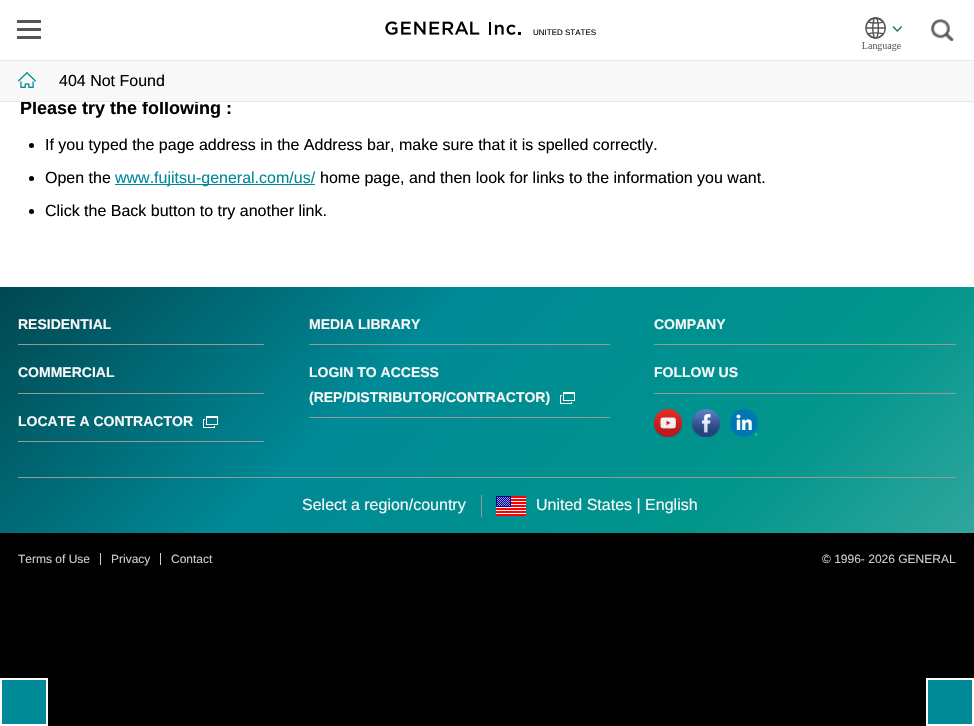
#include "include/core/SkBlurTypes.h"
#include "include/core/SkCanvas.h"
#include "include/core/SkData.h"
#include "include/core/SkFont.h"
#include "include/core/SkFontMgr.h"
#include "include/core/SkImage.h"
#include "include/core/SkMaskFilter.h"
#include "include/core/SkPaint.h"
#include "include/core/SkPathBuilder.h"
#include "include/core/SkTextBlob.h"
#include "include/effects/SkDashPathEffect.h"
#include "include/effects/SkGradientShader.h"
#include "include/utils/SkParsePath.h"

extern sk_sp<SkFontMgr> fontMgr;

static SkFont font(const char* family, int weight, float size, bool italic = false) {
    SkFontStyle style(weight, SkFontStyle::kNormal_Width,
        italic ? SkFontStyle::kItalic_Slant : SkFontStyle::kUpright_Slant);
    SkFont result(fontMgr->matchFamilyStyle(family, style), size);
    result.setSubpixel(true);
    return result;
}

static void drawLabel(SkCanvas* canvas, const char* s, float x, float y, const SkFont& font, SkColor color) {
    SkPaint ink(SkColor4f::FromColor(color));
    ink.setAntiAlias(true);
    canvas->drawString(s, x, y, font, ink);
}

static void fillRect(SkCanvas* canvas, float x, float y, float w, float h, SkColor color) {
    SkPaint ink(SkColor4f::FromColor(color));
    ink.setAntiAlias(true);
    canvas->drawRect(SkRect::MakeXYWH(x, y, w, h), ink);
}

static void drawPhoto(SkCanvas* canvas, const char* path, float x, float y, float w, float h) {
    auto image = SkImages::DeferredFromEncodedData(SkData::MakeFromFileName(path));
    canvas->drawImageRect(image, SkRect::MakeXYWH(x, y, w, h), SkSamplingOptions());
}

void draw(SkCanvas* canvas) {
    SkPaint paint;
    paint.setAntiAlias(true);
    canvas->clear(0xFFFFFFFF);
    fillRect(canvas, 0, 60, 974, 1, 0xFFE7E7E7);
    fillRect(canvas, 17, 28, 24, 3, 0xFF555555);
    fillRect(canvas, 17, 20, 24, 3, 0xFF555555);
    fillRect(canvas, 17, 36, 24, 3, 0xFF555555);
    drawPhoto(canvas, "assets/img1.png", 385, 21, 136, 14);
    SkFont font1 = font("Liberation Sans", 400, 8);
    drawLabel(canvas, "UNITED STATES", 533, 35, font1, 0xFF000000);
    drawPhoto(canvas, "assets/img2.png", 862, 17, 40, 34);
    drawPhoto(canvas, "assets/img3.png", 931, 19, 23, 22);
    SkFont font2 = font("Liberation Sans", 700, 18);
    drawLabel(canvas, "Please try the following :", 20, 114, font2, 0xFF000000);
    fillRect(canvas, 0, 61, 974, 40, 0xFFF8F8F8);
    fillRect(canvas, 0, 101, 974, 1, 0xFFE7E7E7);
    drawPhoto(canvas, "assets/img4.png", 18, 72, 18, 16);
    SkFont font3 = font("Liberation Sans", 400, 16);
    drawLabel(canvas, "404 Not Found", 59, 86, font3, 0xFF000000);
    paint.setColor(0xFF000000);
    canvas->drawCircle(31.5f, 145.5f, 2.5f, paint);
    drawLabel(canvas, "If you typed the page address in the Address bar, make sure that it is spelled correctly.", 45, 150, font3, 0xFF000000);
    canvas->drawCircle(31.5f, 178.5f, 2.5f, paint);
    drawLabel(canvas, "Open the", 45, 183, font3, 0xFF000000);
    fillRect(canvas, 115, 184, 200, 1, 0xFF008996);
    drawLabel(canvas, "www.fujitsu-general.com/us/", 115, 183, font3, 0xFF008996);
    drawLabel(canvas, "home page, and then look for links to the information you want.", 320, 183, font3, 0xFF000000);
    canvas->drawCircle(31.5f, 211.5f, 2.5f, paint);
    drawLabel(canvas, "Click the Back button to try another link.", 45, 216, font3, 0xFF000000);
    {
        const SkColor colors[] = {0xFF004750, 0xFF008996, 0xFF00958B, 0xFF50B2AA};
        const float stops[] = {0, 0.33f, 0.66f, 1};
        const SkPoint ends[] = {{134, 153}, {840, 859}};
        paint.setShader(SkGradientShader::MakeLinear(ends, colors, stops, 4, SkTileMode::kClamp));
        paint.setAlpha(255);
    }
    canvas->drawRect(SkRect::MakeXYWH(0, 287, 974, 246), paint);
    fillRect(canvas, 18, 344, 246, 1, 0xFF999999);
    SkFont font4 = font("Liberation Sans", 700, 14);
    drawLabel(canvas, "RESIDENTIAL", 18, 329, font4, 0xFFF8F8F8);
    fillRect(canvas, 18, 393, 246, 1, 0xFF999999);
    drawLabel(canvas, "COMMERCIAL", 18, 377, font4, 0xFFF8F8F8);
    fillRect(canvas, 18, 441, 246, 1, 0xFF999999);
    drawLabel(canvas, "LOCATE A CONTRACTOR", 18, 426, font4, 0xFFF8F8F8);
    drawPhoto(canvas, "assets/img5.png", 203, 416, 15, 12);
    fillRect(canvas, 309, 344, 301, 1, 0xFF999999);
    drawLabel(canvas, "MEDIA LIBRARY", 309, 329, font4, 0xFFF8F8F8);
    fillRect(canvas, 309, 417, 301, 1, 0xFF999999);
    drawLabel(canvas, "LOGIN TO ACCESS", 309, 377, font4, 0xFFF8F8F8);
    drawLabel(canvas, "(REP/DISTRIBUTOR/CONTRACTOR)", 309, 402, font4, 0xFFF8F8F8);
    drawPhoto(canvas, "assets/img6.png", 560, 392, 15, 12);
    fillRect(canvas, 654, 344, 302, 1, 0xFF999999);
    drawLabel(canvas, "COMPANY", 654, 329, font4, 0xFFF8F8F8);
    fillRect(canvas, 654, 393, 302, 1, 0xFF999999);
    drawLabel(canvas, "FOLLOW US", 654, 377, font4, 0xFFF8F8F8);
    drawPhoto(canvas, "assets/img7.png", 654, 409, 28, 28);
    drawPhoto(canvas, "assets/img8.png", 692, 409, 28, 28);
    drawPhoto(canvas, "assets/img9.png", 730, 409, 28, 28);
    fillRect(canvas, 18, 477, 938, 1, 0xFF999999);
    fillRect(canvas, 481, 495, 1, 22, 0xFF999999);
    drawLabel(canvas, "Select a region/country", 302, 510, font3, 0xFFF8F8F8);
    drawPhoto(canvas, "assets/img10.png", 496, 496, 30, 20);
    drawLabel(canvas, "United States | English", 536, 510, font3, 0xFFF8F8F8);
    fillRect(canvas, 0, 533, 974, 192, 0xFF000000);
    SkFont font5 = font("Liberation Sans", 400, 12);
    drawLabel(canvas, "Terms of Use", 18, 563, font5, 0xFFCCCCCC);
    fillRect(canvas, 100, 553, 1, 12, 0xFFCCCCCC);
    drawLabel(canvas, "Privacy", 111, 563, font5, 0xFFCCCCCC);
    fillRect(canvas, 160, 553, 1, 12, 0xFFCCCCCC);
    drawLabel(canvas, "Contact", 171, 563, font5, 0xFFCCCCCC);
    drawLabel(canvas, "© 1996- 2026 GENERAL", 822, 563, font5, 0xFFCCCCCC);
    paint.setShader(nullptr);
    paint.setColor(0xFF008996);
    canvas->drawRect(SkRect::MakeXYWH(1, 679, 46, 46), paint);
    paint.setStroke(true);
    paint.setStrokeWidth(2);
    paint.setColor(0xFFFFFFFF);
    canvas->drawRect(SkRect::MakeXYWH(1, 679, 46, 46), paint);
    paint.setStroke(false);
    paint.setColor(0xFF008996);
    canvas->drawRect(SkRect::MakeXYWH(927, 679, 46, 46), paint);
    paint.setStroke(true);
    paint.setColor(0xFFFFFFFF);
    canvas->drawRect(SkRect::MakeXYWH(927, 679, 46, 46), paint);
    fillRect(canvas, 48, 725, 878, 1, 0xFF000000);
}
